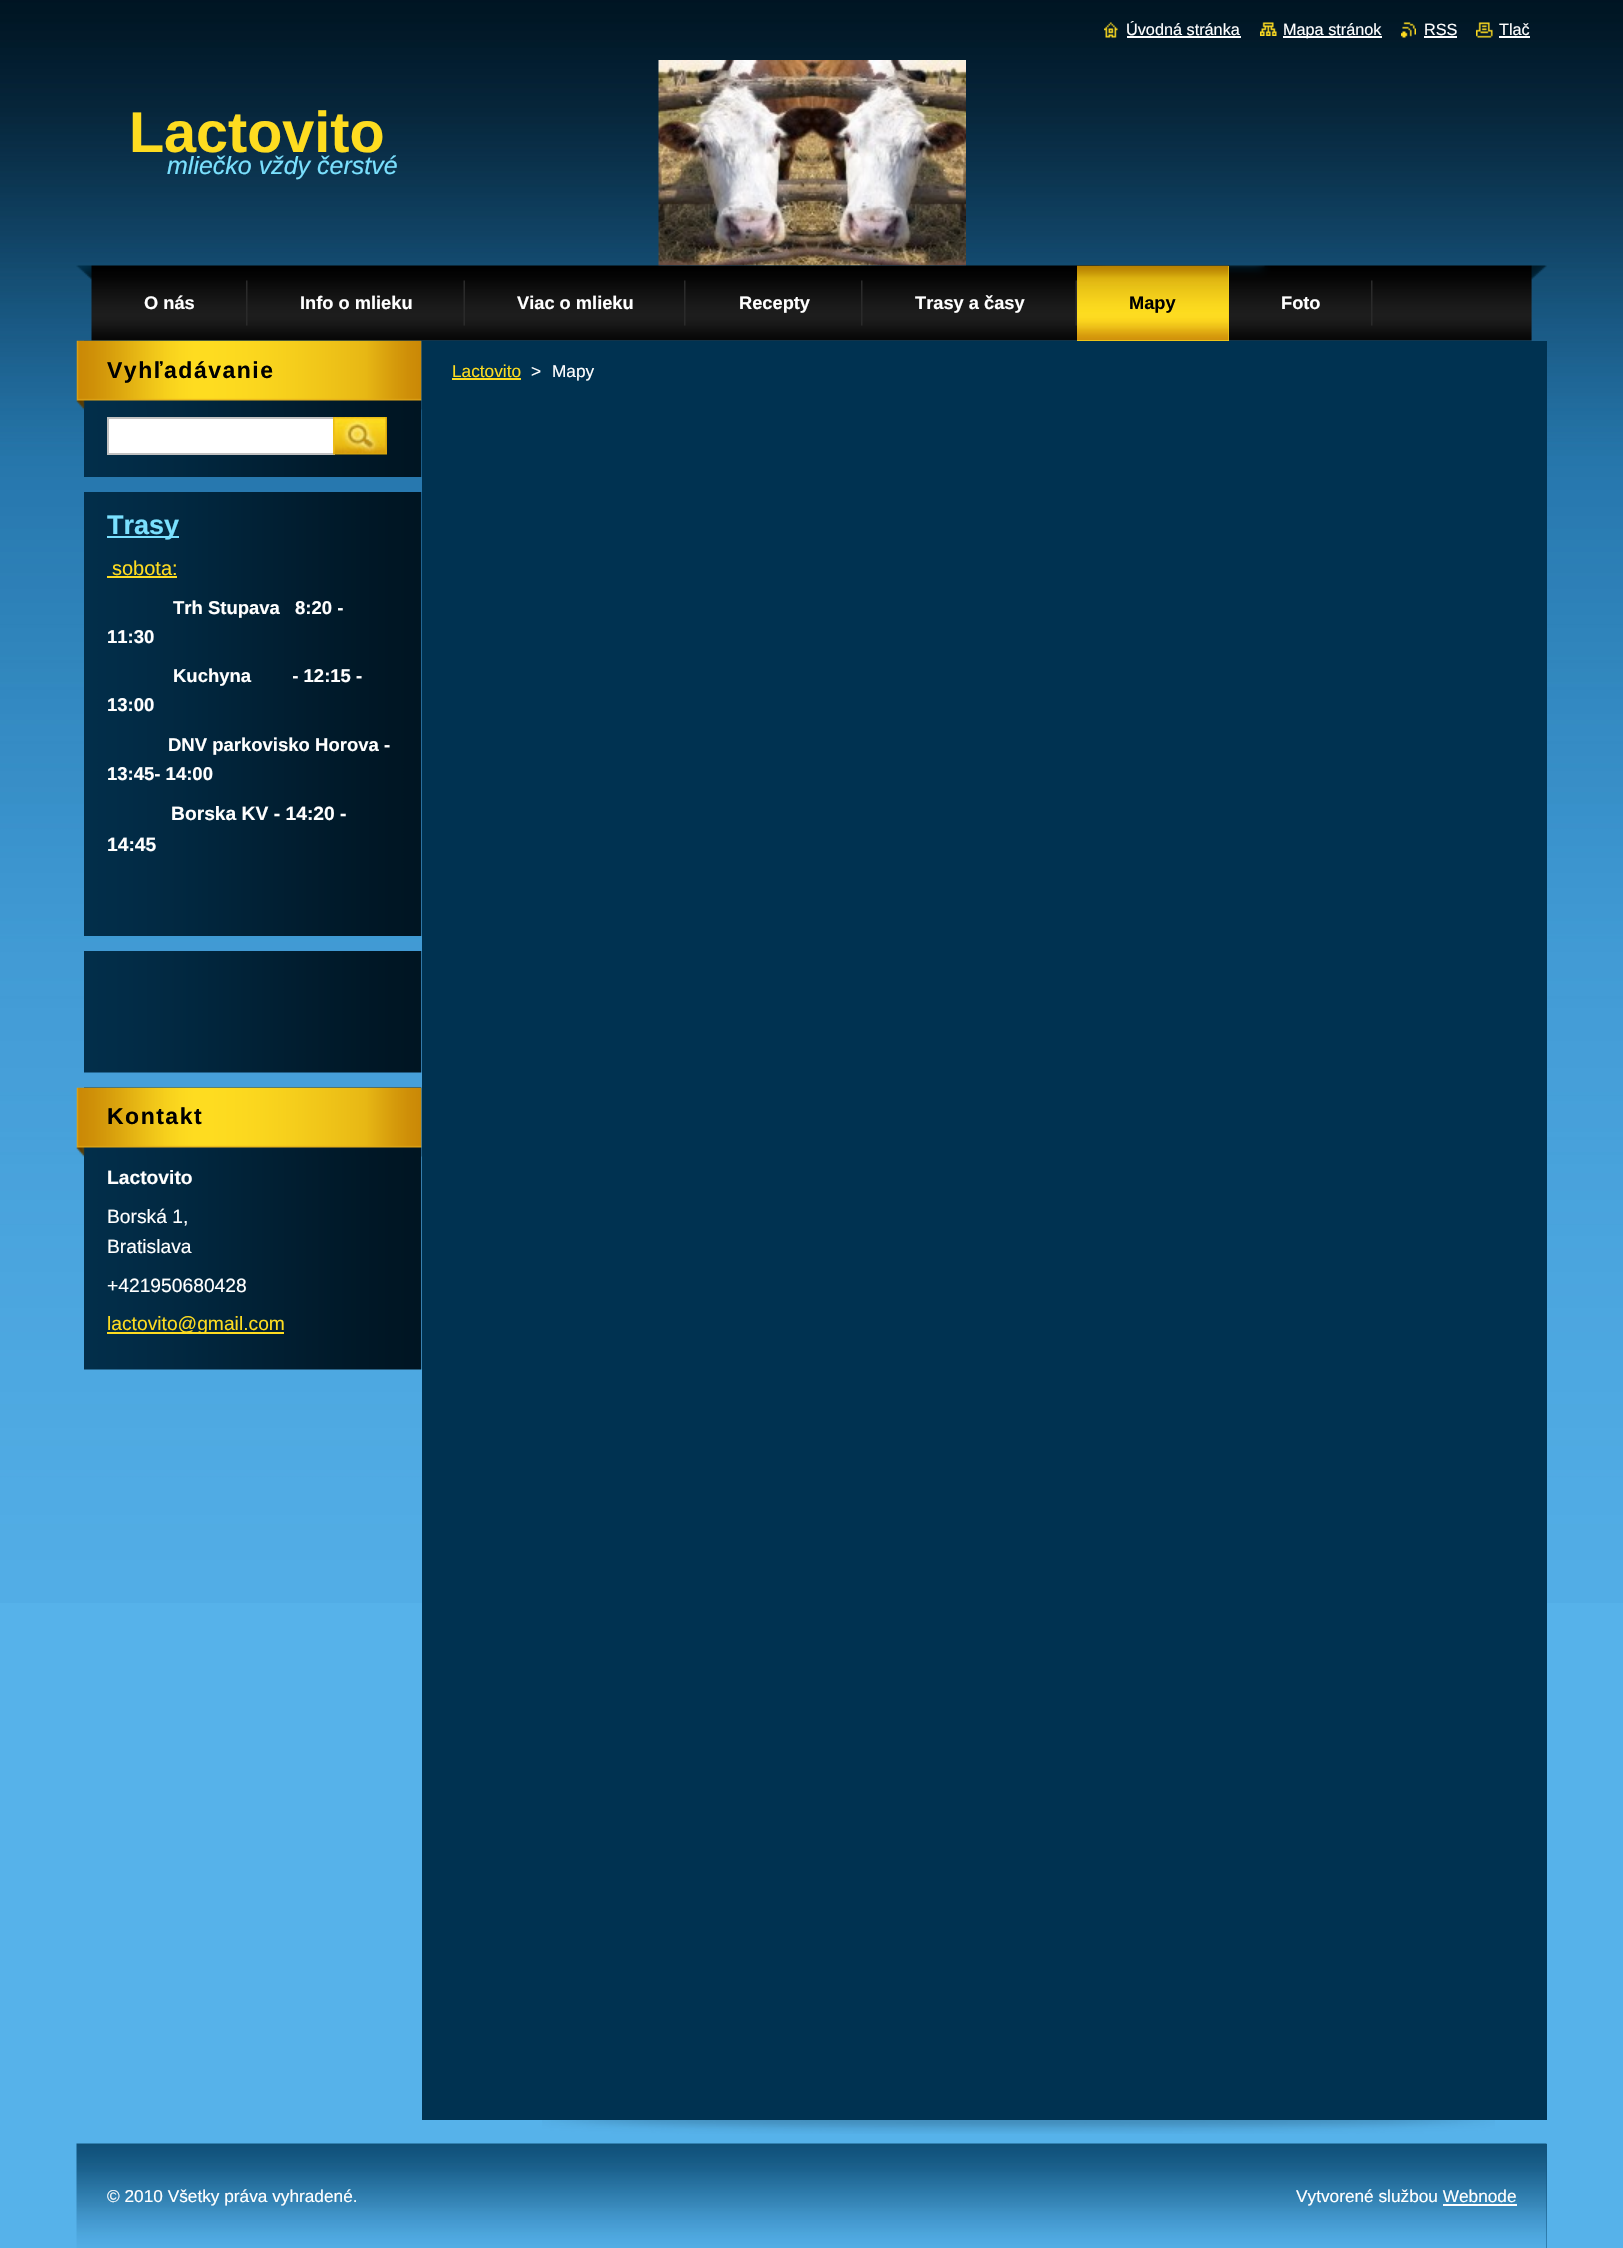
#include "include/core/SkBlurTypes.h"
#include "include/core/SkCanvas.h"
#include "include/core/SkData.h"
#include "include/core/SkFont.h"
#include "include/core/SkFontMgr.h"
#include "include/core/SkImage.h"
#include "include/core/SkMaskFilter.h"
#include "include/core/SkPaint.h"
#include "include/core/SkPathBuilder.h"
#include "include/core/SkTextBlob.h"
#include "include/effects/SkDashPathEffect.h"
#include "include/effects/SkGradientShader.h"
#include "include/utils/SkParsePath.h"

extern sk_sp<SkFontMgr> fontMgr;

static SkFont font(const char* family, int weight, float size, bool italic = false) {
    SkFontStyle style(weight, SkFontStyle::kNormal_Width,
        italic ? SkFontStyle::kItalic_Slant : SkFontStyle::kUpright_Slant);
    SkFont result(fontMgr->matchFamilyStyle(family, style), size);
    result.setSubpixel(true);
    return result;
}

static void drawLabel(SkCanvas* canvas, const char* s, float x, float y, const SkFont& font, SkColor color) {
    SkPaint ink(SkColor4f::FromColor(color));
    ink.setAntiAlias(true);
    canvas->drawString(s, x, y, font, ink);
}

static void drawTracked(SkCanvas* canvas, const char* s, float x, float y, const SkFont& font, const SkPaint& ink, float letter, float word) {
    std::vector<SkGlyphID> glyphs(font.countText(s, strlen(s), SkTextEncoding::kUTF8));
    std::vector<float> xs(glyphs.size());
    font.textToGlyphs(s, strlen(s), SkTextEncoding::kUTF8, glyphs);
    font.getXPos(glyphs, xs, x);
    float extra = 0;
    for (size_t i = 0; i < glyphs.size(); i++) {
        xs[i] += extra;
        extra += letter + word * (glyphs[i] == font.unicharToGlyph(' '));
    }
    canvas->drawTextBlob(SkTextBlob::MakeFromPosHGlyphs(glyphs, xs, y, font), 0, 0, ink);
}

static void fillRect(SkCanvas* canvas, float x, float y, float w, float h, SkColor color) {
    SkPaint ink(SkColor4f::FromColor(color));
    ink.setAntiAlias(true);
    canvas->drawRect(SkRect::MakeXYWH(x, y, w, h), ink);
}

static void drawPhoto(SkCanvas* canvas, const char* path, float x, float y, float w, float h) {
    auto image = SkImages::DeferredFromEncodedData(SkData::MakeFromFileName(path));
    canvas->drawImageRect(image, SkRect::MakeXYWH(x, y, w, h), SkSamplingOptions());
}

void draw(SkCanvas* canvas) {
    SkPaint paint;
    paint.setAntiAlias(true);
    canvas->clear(0xFF56B2EA);
    drawPhoto(canvas, "assets/img1.png", 0, 0, 1623, 1603);
    drawPhoto(canvas, "assets/img2.png", 1104, 22, 14, 16);
    SkFont font1 = font("Liberation Sans", 400, 16.25f);
    drawLabel(canvas, "Úvodná stránka", 1126, 35, font1, 0xFFFFFFFF);
    fillRect(canvas, 1127, 36, 114, 2, 0xFFFFFFFF);
    drawPhoto(canvas, "assets/img3.png", 1260, 22, 17, 14);
    fillRect(canvas, 1283, 36, 99, 2, 0xFFFFFFFF);
    drawLabel(canvas, "Mapa stránok", 1283, 35, font1, 0xFFFFFFFF);
    drawPhoto(canvas, "assets/img4.png", 1401, 22, 15, 16);
    drawLabel(canvas, "RSS", 1424, 35, font1, 0xFFFFFFFF);
    fillRect(canvas, 1424, 36, 33, 2, 0xFFFFFFFF);
    drawPhoto(canvas, "assets/img5.png", 1476, 22, 17, 16);
    drawLabel(canvas, "Tlač", 1499, 35, font1, 0xFFFFFFFF);
    fillRect(canvas, 1499, 36, 31, 2, 0xFFFFFFFF);
    SkFont font2 = font("Liberation Sans", 700, 57.5f);
    drawLabel(canvas, "Lactovito", 129, 152, font2, 0xFFFEDC20);
    SkFont font3 = font("Liberation Sans", 400, 25, true);
    drawLabel(canvas, "mliečko vždy čerstvé", 167, 174, font3, 0xFF7AE0FE);
    drawPhoto(canvas, "assets/img7.png", 76, 265, 1471, 76);
    drawPhoto(canvas, "assets/img6.png", 658, 60, 308, 206);
    drawPhoto(canvas, "assets/img8.png", 246, 280, 2, 46);
    SkFont font4 = font("Liberation Sans", 700, 18.25f);
    drawLabel(canvas, "O nás", 144, 309, font4, 0xFFFFFFFF);
    drawPhoto(canvas, "assets/img9.png", 463, 280, 2, 46);
    drawLabel(canvas, "Info o mlieku", 300, 309, font4, 0xFFFFFFFF);
    drawPhoto(canvas, "assets/img8.png", 684, 280, 2, 46);
    drawLabel(canvas, "Viac o mlieku", 517, 309, font4, 0xFFFFFFFF);
    drawPhoto(canvas, "assets/img8.png", 861, 280, 2, 46);
    drawLabel(canvas, "Recepty", 739, 309, font4, 0xFFFFFFFF);
    drawPhoto(canvas, "assets/img9.png", 1075, 280, 2, 46);
    drawLabel(canvas, "Trasy a časy", 915, 309, font4, 0xFFFFFFFF);
    fillRect(canvas, 1077, 266, 152, 75, 0xFFF7D41C);
    drawPhoto(canvas, "assets/img10.png", 1077, 265, 152, 76);
    drawLabel(canvas, "Mapy", 1129, 309, font4, 0xFF000000);
    drawPhoto(canvas, "assets/img8.png", 1371, 280, 2, 46);
    drawLabel(canvas, "Foto", 1281, 309, font4, 0xFFFFFFFF);
    drawPhoto(canvas, "assets/img11.png", 84, 340, 338, 137);
    drawPhoto(canvas, "assets/img12.png", 76, 340, 346, 70);
    SkFont font5 = font("Liberation Sans", 700, 23);
    paint.setColor(0xFF000000);
    drawTracked(canvas, "Vyhľadávanie", 107, 378, font5, paint, 1.5f, 0);
    paint.setColor(0xFFFFFFFF);
    canvas->drawRect(SkRect::MakeXYWH(108, 418, 226, 36), paint);
    paint.setStroke(true);
    paint.setStrokeWidth(2);
    paint.setColor(0xFFC1C1C1);
    canvas->drawRect(SkRect::MakeXYWH(108, 418, 226, 36), paint);
    drawPhoto(canvas, "assets/img13.png", 333, 417, 54, 38);
    drawPhoto(canvas, "assets/img14.png", 84, 492, 338, 444);
    fillRect(canvas, 107, 536, 72, 2, 0xFF7AE0FE);
    canvas->save();
    canvas->clipRect(SkRect::MakeXYWH(107, 492, 285, 444));
    SkFont font6 = font("Liberation Sans", 700, 27);
    drawLabel(canvas, "Trasy", 107, 534, font6, 0xFF7AE0FE);
    canvas->restore();
    SkFont font7 = font("Liberation Sans", 400, 20);
    drawLabel(canvas, "sobota:", 112, 575, font7, 0xFFFEDC20);
    fillRect(canvas, 107, 576, 70, 2, 0xFFFEDC20);
    SkFont font8 = font("Liberation Sans", 700, 18.5f);
    drawLabel(canvas, "Trh Stupava", 173, 614, font8, 0xFFFFFFFF);
    drawLabel(canvas, "8:20 -", 295, 614, font8, 0xFFFFFFFF);
    drawLabel(canvas, "11:30", 107, 643, font8, 0xFFFFFFFF);
    drawLabel(canvas, "Kuchyna        - 12:15 -", 173, 682, font8, 0xFFFFFFFF);
    drawLabel(canvas, "13:00", 107, 711, font8, 0xFFFFFFFF);
    drawLabel(canvas, "DNV parkovisko Horova -", 168, 751, font8, 0xFFFFFFFF);
    drawLabel(canvas, "13:45- 14:00", 107, 780, font8, 0xFFFFFFFF);
    SkFont font9 = font("Liberation Sans", 700, 19.25f);
    drawLabel(canvas, "Borska KV - 14:20 -", 171, 820, font9, 0xFFFFFFFF);
    drawLabel(canvas, "14:45", 107, 851, font9, 0xFFFFFFFF);
    drawPhoto(canvas, "assets/img15.png", 84, 951, 338, 122);
    drawPhoto(canvas, "assets/img16.png", 84, 1087, 338, 283);
    drawPhoto(canvas, "assets/img17.png", 76, 1087, 346, 70);
    paint.setStroke(false);
    paint.setColor(0xFF000000);
    drawTracked(canvas, "Kontakt", 107, 1124, font5, paint, 1.5f, 0);
    drawLabel(canvas, "Lactovito", 107, 1184, font9, 0xFFFFFFFF);
    SkFont font10 = font("Liberation Sans", 400, 19.25f);
    drawLabel(canvas, "Borská 1,", 107, 1223, font10, 0xFFFFFFFF);
    drawLabel(canvas, "Bratislava", 107, 1253, font10, 0xFFFFFFFF);
    drawLabel(canvas, "+421950680428", 107, 1292, font10, 0xFFFFFFFF);
    fillRect(canvas, 107, 1332, 177, 2, 0xFFFEDC20);
    drawLabel(canvas, "lactovito@gmail.com", 107, 1330, font10, 0xFFFEDC20);
    drawPhoto(canvas, "assets/img18.png", 542, 2120, 953, 14);
    fillRect(canvas, 422, 341, 1125, 1779, 0xFF003251);
    SkFont font11 = font("Liberation Sans", 400, 17.25f);
    drawLabel(canvas, "Lactovito", 452, 377, font11, 0xFFFEDC20);
    fillRect(canvas, 452, 378, 69, 2, 0xFFFEDC20);
    drawLabel(canvas, ">", 531, 377, font11, 0xFFFFFFFF);
    drawLabel(canvas, "Mapy", 552, 377, font11, 0xFFFFFFFF);
    fillRect(canvas, 1546, 2144, 1, 104, 0xFF10527B);
    drawPhoto(canvas, "assets/img19.png", 76, 2143, 1471, 105);
    drawLabel(canvas, "© 2010 Všetky práva vyhradené.", 107, 2202, font11, 0xFFFFFFFF);
    drawLabel(canvas, "Vytvorené službou Webnode", 1296, 2202, font11, 0xFFFFFFFF);
    fillRect(canvas, 1443, 2204, 74, 2, 0xFFFFFFFF);
}
